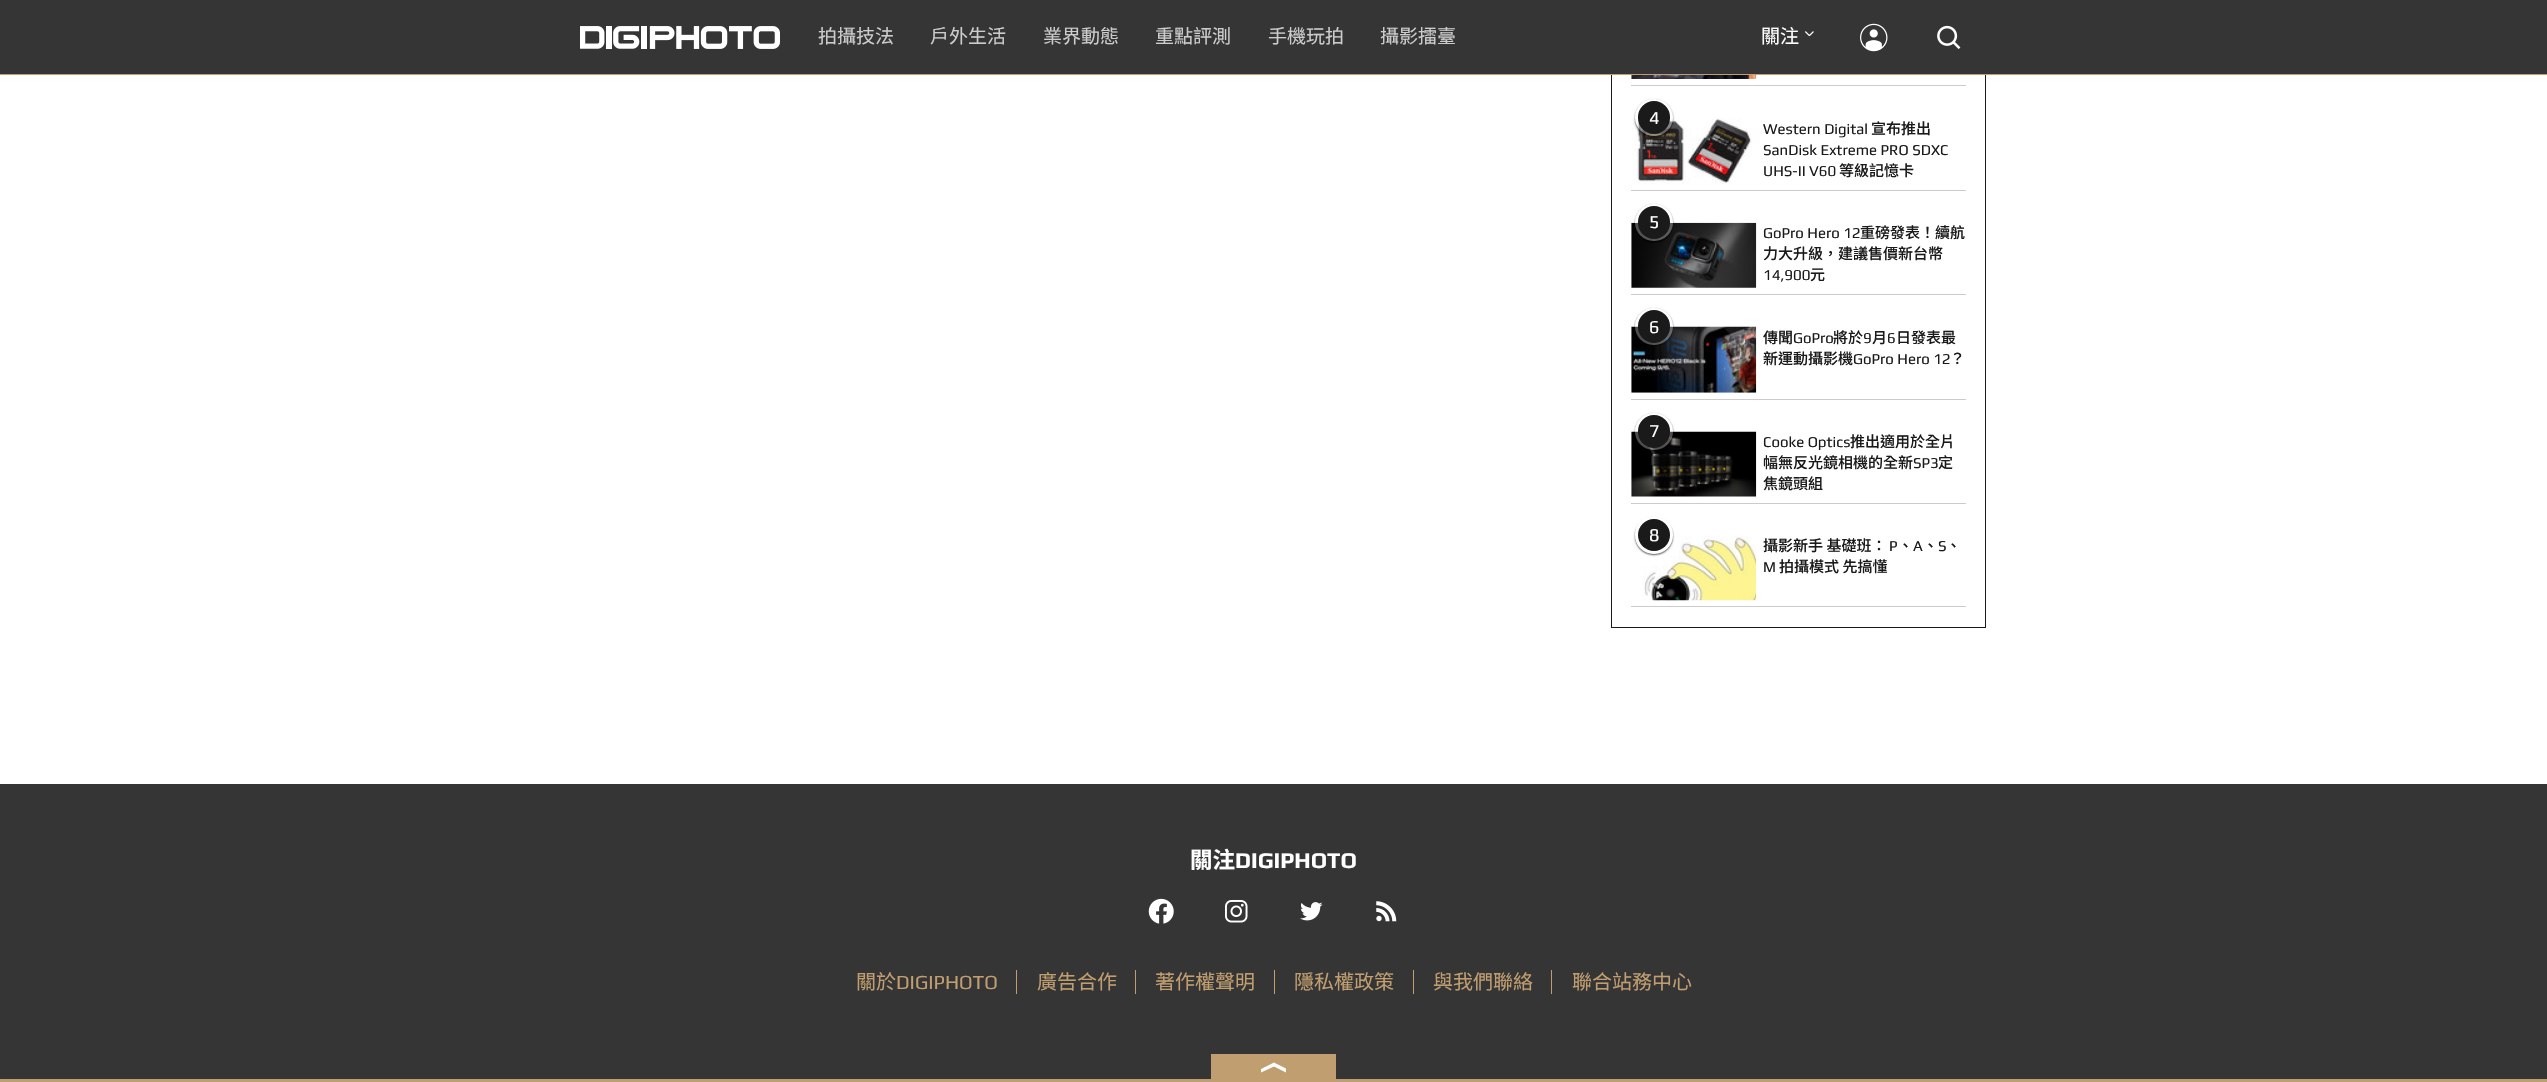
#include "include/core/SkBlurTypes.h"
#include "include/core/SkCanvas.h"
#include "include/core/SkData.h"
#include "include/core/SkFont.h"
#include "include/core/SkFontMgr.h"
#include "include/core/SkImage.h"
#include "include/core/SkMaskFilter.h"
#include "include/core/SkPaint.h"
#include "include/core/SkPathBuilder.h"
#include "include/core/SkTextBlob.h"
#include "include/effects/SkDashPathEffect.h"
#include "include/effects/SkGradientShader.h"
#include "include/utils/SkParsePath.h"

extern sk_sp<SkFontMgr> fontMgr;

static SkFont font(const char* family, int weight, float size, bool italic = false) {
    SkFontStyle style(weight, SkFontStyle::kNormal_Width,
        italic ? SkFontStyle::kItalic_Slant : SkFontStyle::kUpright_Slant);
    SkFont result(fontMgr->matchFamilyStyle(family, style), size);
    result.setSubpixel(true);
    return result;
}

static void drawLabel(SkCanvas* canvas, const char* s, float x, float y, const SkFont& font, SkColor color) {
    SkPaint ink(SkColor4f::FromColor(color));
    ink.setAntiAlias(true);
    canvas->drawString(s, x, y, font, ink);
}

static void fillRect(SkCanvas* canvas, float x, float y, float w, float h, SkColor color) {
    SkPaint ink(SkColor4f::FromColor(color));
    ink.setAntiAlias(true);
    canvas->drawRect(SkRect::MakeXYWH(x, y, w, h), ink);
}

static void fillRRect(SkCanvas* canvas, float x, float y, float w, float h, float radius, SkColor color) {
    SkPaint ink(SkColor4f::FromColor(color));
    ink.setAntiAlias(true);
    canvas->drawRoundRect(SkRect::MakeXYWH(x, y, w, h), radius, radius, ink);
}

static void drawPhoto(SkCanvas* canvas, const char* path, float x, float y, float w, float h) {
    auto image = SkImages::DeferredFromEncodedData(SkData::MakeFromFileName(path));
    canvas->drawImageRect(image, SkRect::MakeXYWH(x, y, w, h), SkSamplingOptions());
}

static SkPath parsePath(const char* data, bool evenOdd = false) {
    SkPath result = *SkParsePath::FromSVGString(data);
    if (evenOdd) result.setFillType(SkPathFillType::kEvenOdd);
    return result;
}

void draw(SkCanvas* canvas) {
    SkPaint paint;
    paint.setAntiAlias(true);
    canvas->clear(0xFFFFFFFF);
    paint.setStroke(true);
    paint.setStrokeWidth(1);
    paint.setColor(0xFF1A1A1A);
    canvas->drawRect(SkRect::MakeXYWH(1611.5f, -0.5f, 374, 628), paint);
    fillRect(canvas, 0, 0, 2547, 74, 0xFF353535);
    fillRect(canvas, 0, 74, 2547, 1, 0xFFC09E70);
    drawPhoto(canvas, "assets/img1.png", 580, 26, 200, 23);
    SkFont font1 = font("Noto Sans TC", 400, 19);
    drawLabel(canvas, "拍攝技法", 818, 43, font1, 0xFFCCCCCC);
    drawLabel(canvas, "戶外生活", 930, 43, font1, 0xFFCCCCCC);
    drawLabel(canvas, "業界動態", 1043, 43, font1, 0xFFCCCCCC);
    drawLabel(canvas, "重點評測", 1155, 43, font1, 0xFFCCCCCC);
    drawLabel(canvas, "手機玩拍", 1268, 43, font1, 0xFFCCCCCC);
    drawLabel(canvas, "攝影擂臺", 1380, 43, font1, 0xFFCCCCCC);
    drawLabel(canvas, "關注", 1761, 43, font1, 0xFFFFFFFF);
    drawPhoto(canvas, "assets/img2.png", 1805, 31, 9, 5);
    drawPhoto(canvas, "assets/img3.png", 1860, 23, 28, 29);
    drawPhoto(canvas, "assets/img4.png", 1937, 25, 24, 24);
    fillRect(canvas, 1631, 85, 335, 1, 0xFFCCCCCC);
    drawPhoto(canvas, "assets/img5.png", 1631, 75, 126, 4);
    fillRect(canvas, 1631, 190, 335, 1, 0xFFCCCCCC);
    drawPhoto(canvas, "assets/img6.png", 1632, 118, 120, 66);
    canvas->save();
    canvas->clipPath(parsePath("M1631 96H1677V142H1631ZM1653.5 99H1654.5C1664.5 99 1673 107.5 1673 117.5C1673 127.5 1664.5 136 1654.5 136H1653.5C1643.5 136 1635 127.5 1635 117.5C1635 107.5 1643.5 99 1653.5 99Z", true), true);
    paint.setStroke(false);
    paint.setColor(0xA6000000);
    paint.setMaskFilter(SkMaskFilter::MakeBlur(kNormal_SkBlurStyle, 1));
    canvas->drawRoundRect(SkRect::MakeXYWH(1635, 100, 38, 38), 19, 19, paint);
    paint.setMaskFilter(nullptr);
    canvas->restore();
    fillRRect(canvas, 1635, 99, 38, 37, 18.5f, 0x4DFFFFFF);
    fillRRect(canvas, 1638, 101, 32, 33, 16, 0xFF1A1A1A);
    SkFont font2 = font("Play", 400, 18);
    drawLabel(canvas, "4", 1649, 124, font2, 0xFFFFFFFF);
    SkFont font3 = font("Play", 400, 15);
    drawLabel(canvas, "Western Digital", 1763, 134, font3, 0xFF1A1A1A);
    SkFont font4 = font("Noto Sans TC", 500, 15);
    drawLabel(canvas, "宣布推出", 1871, 134, font4, 0xFF1A1A1A);
    drawLabel(canvas, "SanDisk Extreme PRO SDXC", 1763, 155, font3, 0xFF1A1A1A);
    drawLabel(canvas, "UHS-II V60", 1763, 176, font3, 0xFF1A1A1A);
    drawLabel(canvas, "等級記憶卡", 1839, 176, font4, 0xFF1A1A1A);
    fillRect(canvas, 1631, 294, 335, 1, 0xFFCCCCCC);
    drawPhoto(canvas, "assets/img7.png", 1631, 222, 126, 66);
    canvas->save();
    canvas->clipPath(parsePath("M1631 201H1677V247H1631ZM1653.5 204H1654.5C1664.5 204 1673 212.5 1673 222.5C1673 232.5 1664.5 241 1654.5 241H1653.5C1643.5 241 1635 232.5 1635 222.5C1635 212.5 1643.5 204 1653.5 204Z", true), true);
    paint.setMaskFilter(SkMaskFilter::MakeBlur(kNormal_SkBlurStyle, 1));
    canvas->drawRoundRect(SkRect::MakeXYWH(1635, 205, 38, 38), 19, 19, paint);
    paint.setMaskFilter(nullptr);
    canvas->restore();
    fillRRect(canvas, 1635, 204, 38, 37, 18.5f, 0x4DFFFFFF);
    fillRRect(canvas, 1638, 206, 32, 33, 16, 0xFF1A1A1A);
    drawLabel(canvas, "5", 1649, 228, font2, 0xFFFFFFFF);
    drawLabel(canvas, "GoPro Hero 12", 1763, 238, font3, 0xFF1A1A1A);
    drawLabel(canvas, "重磅發表！續航", 1860, 238, font4, 0xFF1A1A1A);
    drawLabel(canvas, "力大升級，建議售價新台幣", 1763, 259, font4, 0xFF1A1A1A);
    drawLabel(canvas, "14,900", 1763, 280, font3, 0xFF1A1A1A);
    drawLabel(canvas, "元", 1810, 280, font4, 0xFF1A1A1A);
    fillRect(canvas, 1631, 399, 335, 1, 0xFFCCCCCC);
    drawPhoto(canvas, "assets/img8.png", 1631, 326, 126, 67);
    canvas->save();
    canvas->clipPath(parsePath("M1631 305H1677V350H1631ZM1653.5 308H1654.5C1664.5 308 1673 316.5 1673 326.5C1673 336.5 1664.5 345 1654.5 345H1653.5C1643.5 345 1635 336.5 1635 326.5C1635 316.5 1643.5 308 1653.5 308Z", true), true);
    paint.setMaskFilter(SkMaskFilter::MakeBlur(kNormal_SkBlurStyle, 1));
    canvas->drawRoundRect(SkRect::MakeXYWH(1635, 309, 38, 37), 18.5f, 18.5f, paint);
    paint.setMaskFilter(nullptr);
    canvas->restore();
    fillRRect(canvas, 1635, 308, 38, 37, 18.5f, 0x4DFFFFFF);
    fillRRect(canvas, 1638, 310, 32, 33, 16, 0xFF1A1A1A);
    drawLabel(canvas, "6", 1649, 333, font2, 0xFFFFFFFF);
    drawLabel(canvas, "傳聞", 1763, 343, font4, 0xFF1A1A1A);
    drawLabel(canvas, "GoPro", 1793, 343, font3, 0xFF1A1A1A);
    drawLabel(canvas, "將於", 1833, 343, font4, 0xFF1A1A1A);
    drawLabel(canvas, "9", 1863, 343, font3, 0xFF1A1A1A);
    drawLabel(canvas, "月", 1872, 343, font4, 0xFF1A1A1A);
    drawLabel(canvas, "6", 1887, 343, font3, 0xFF1A1A1A);
    drawLabel(canvas, "日發表最", 1896, 343, font4, 0xFF1A1A1A);
    drawLabel(canvas, "新運動攝影機", 1763, 364, font4, 0xFF1A1A1A);
    drawLabel(canvas, "GoPro Hero 12", 1853, 364, font3, 0xFF1A1A1A);
    drawLabel(canvas, "？", 1950, 364, font4, 0xFF1A1A1A);
    fillRect(canvas, 1631, 503, 335, 1, 0xFFCCCCCC);
    drawPhoto(canvas, "assets/img9.png", 1631, 431, 126, 66);
    canvas->save();
    canvas->clipPath(parsePath("M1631 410H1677V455H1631ZM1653.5 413H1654.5C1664.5 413 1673 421.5 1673 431.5C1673 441.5 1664.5 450 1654.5 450H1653.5C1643.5 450 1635 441.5 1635 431.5C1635 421.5 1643.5 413 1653.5 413Z", true), true);
    paint.setMaskFilter(SkMaskFilter::MakeBlur(kNormal_SkBlurStyle, 1));
    canvas->drawRoundRect(SkRect::MakeXYWH(1635, 414, 38, 37), 18.5f, 18.5f, paint);
    paint.setMaskFilter(nullptr);
    canvas->restore();
    fillRRect(canvas, 1635, 413, 38, 37, 18.5f, 0x4DFFFFFF);
    fillRRect(canvas, 1638, 415, 32, 33, 16, 0xFF1A1A1A);
    drawLabel(canvas, "7", 1649, 437, font2, 0xFFFFFFFF);
    drawLabel(canvas, "Cooke Optics", 1763, 447, font3, 0xFF1A1A1A);
    drawLabel(canvas, "推出適用於全片", 1850, 447, font4, 0xFF1A1A1A);
    drawLabel(canvas, "幅無反光鏡相機的全新", 1763, 468, font4, 0xFF1A1A1A);
    drawLabel(canvas, "SP3", 1913, 468, font3, 0xFF1A1A1A);
    drawLabel(canvas, "定", 1938, 468, font4, 0xFF1A1A1A);
    drawLabel(canvas, "焦鏡頭組", 1763, 489, font4, 0xFF1A1A1A);
    fillRect(canvas, 1631, 606, 335, 1, 0xFFCCCCCC);
    drawPhoto(canvas, "assets/img10.png", 1643, 535, 114, 66);
    canvas->save();
    canvas->clipPath(parsePath("M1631 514H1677V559H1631ZM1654 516C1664.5 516 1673 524.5 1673 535C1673 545.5 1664.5 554 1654 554C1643.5 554 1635 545.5 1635 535C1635 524.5 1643.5 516 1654 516Z", true), true);
    paint.setMaskFilter(SkMaskFilter::MakeBlur(kNormal_SkBlurStyle, 1));
    canvas->drawRoundRect(SkRect::MakeXYWH(1635, 518, 38, 37), 18.5f, 18.5f, paint);
    paint.setMaskFilter(nullptr);
    canvas->restore();
    paint.setColor(0x4DFFFFFF);
    canvas->drawCircle(1654, 535, 19, paint);
    paint.setColor(0xFF1A1A1A);
    canvas->drawCircle(1654, 535, 16, paint);
    drawLabel(canvas, "8", 1649, 541, font2, 0xFFFFFFFF);
    drawLabel(canvas, "攝影新手 基礎班：", 1763, 551, font4, 0xFF1A1A1A);
    drawLabel(canvas, "P", 1889, 551, font3, 0xFF1A1A1A);
    drawLabel(canvas, "、", 1898, 551, font4, 0xFF1A1A1A);
    drawLabel(canvas, "A", 1913, 551, font3, 0xFF1A1A1A);
    drawLabel(canvas, "、", 1923, 551, font4, 0xFF1A1A1A);
    drawLabel(canvas, "S", 1938, 551, font3, 0xFF1A1A1A);
    drawLabel(canvas, "、", 1946, 551, font4, 0xFF1A1A1A);
    drawLabel(canvas, "M", 1763, 572, font3, 0xFF1A1A1A);
    drawLabel(canvas, "拍攝模式 先搞懂", 1779, 572, font4, 0xFF1A1A1A);
    fillRect(canvas, 0, 784, 2547, 295, 0xFF353535);
    fillRect(canvas, 0, 1079, 2547, 3, 0xFFC09E70);
    SkFont font5 = font("Noto Sans TC", 700, 22.5f);
    drawLabel(canvas, "關注", 1190, 868, font5, 0xFFFFFFFF);
    SkFont font6 = font("Play", 700, 22.5f);
    drawLabel(canvas, "DIGIPHOTO", 1235, 868, font6, 0xFFFFFFFF);
    drawPhoto(canvas, "assets/img11.png", 1148, 898, 26, 26);
    drawPhoto(canvas, "assets/img12.png", 1225, 900, 23, 23);
    drawPhoto(canvas, "assets/img13.png", 1300, 902, 23, 19);
    drawPhoto(canvas, "assets/img14.png", 1376, 901, 21, 21);
    SkFont font7 = font("Noto Sans TC", 400, 20);
    drawLabel(canvas, "關於", 856, 989, font7, 0xFFC09E70);
    SkFont font8 = font("Play", 400, 20);
    drawLabel(canvas, "DIGIPHOTO", 896, 989, font8, 0xFFC09E70);
    drawLabel(canvas, "廣告合作", 1037, 989, font7, 0xFFC09E70);
    fillRect(canvas, 1016, 970, 1, 24, 0xFFC09E70);
    drawLabel(canvas, "著作權聲明", 1155, 989, font7, 0xFFC09E70);
    fillRect(canvas, 1135, 970, 1, 24, 0xFFC09E70);
    drawLabel(canvas, "隱私權政策", 1294, 989, font7, 0xFFC09E70);
    fillRect(canvas, 1274, 970, 1, 24, 0xFFC09E70);
    drawLabel(canvas, "與我們聯絡", 1433, 989, font7, 0xFFC09E70);
    fillRect(canvas, 1413, 970, 1, 24, 0xFFC09E70);
    drawLabel(canvas, "聯合站務中心", 1572, 989, font7, 0xFFC09E70);
    fillRect(canvas, 1551, 970, 1, 24, 0xFFC09E70);
    fillRect(canvas, 1211, 1054, 125, 25, 0xFFC09E70);
    paint.setColor(0xFFFFFFFF);
    canvas->drawPath(parsePath("M1261 1069L1274 1062.5L1286 1068.5V1072.5L1274 1066.5L1261 1072.5Z"), paint);
}
